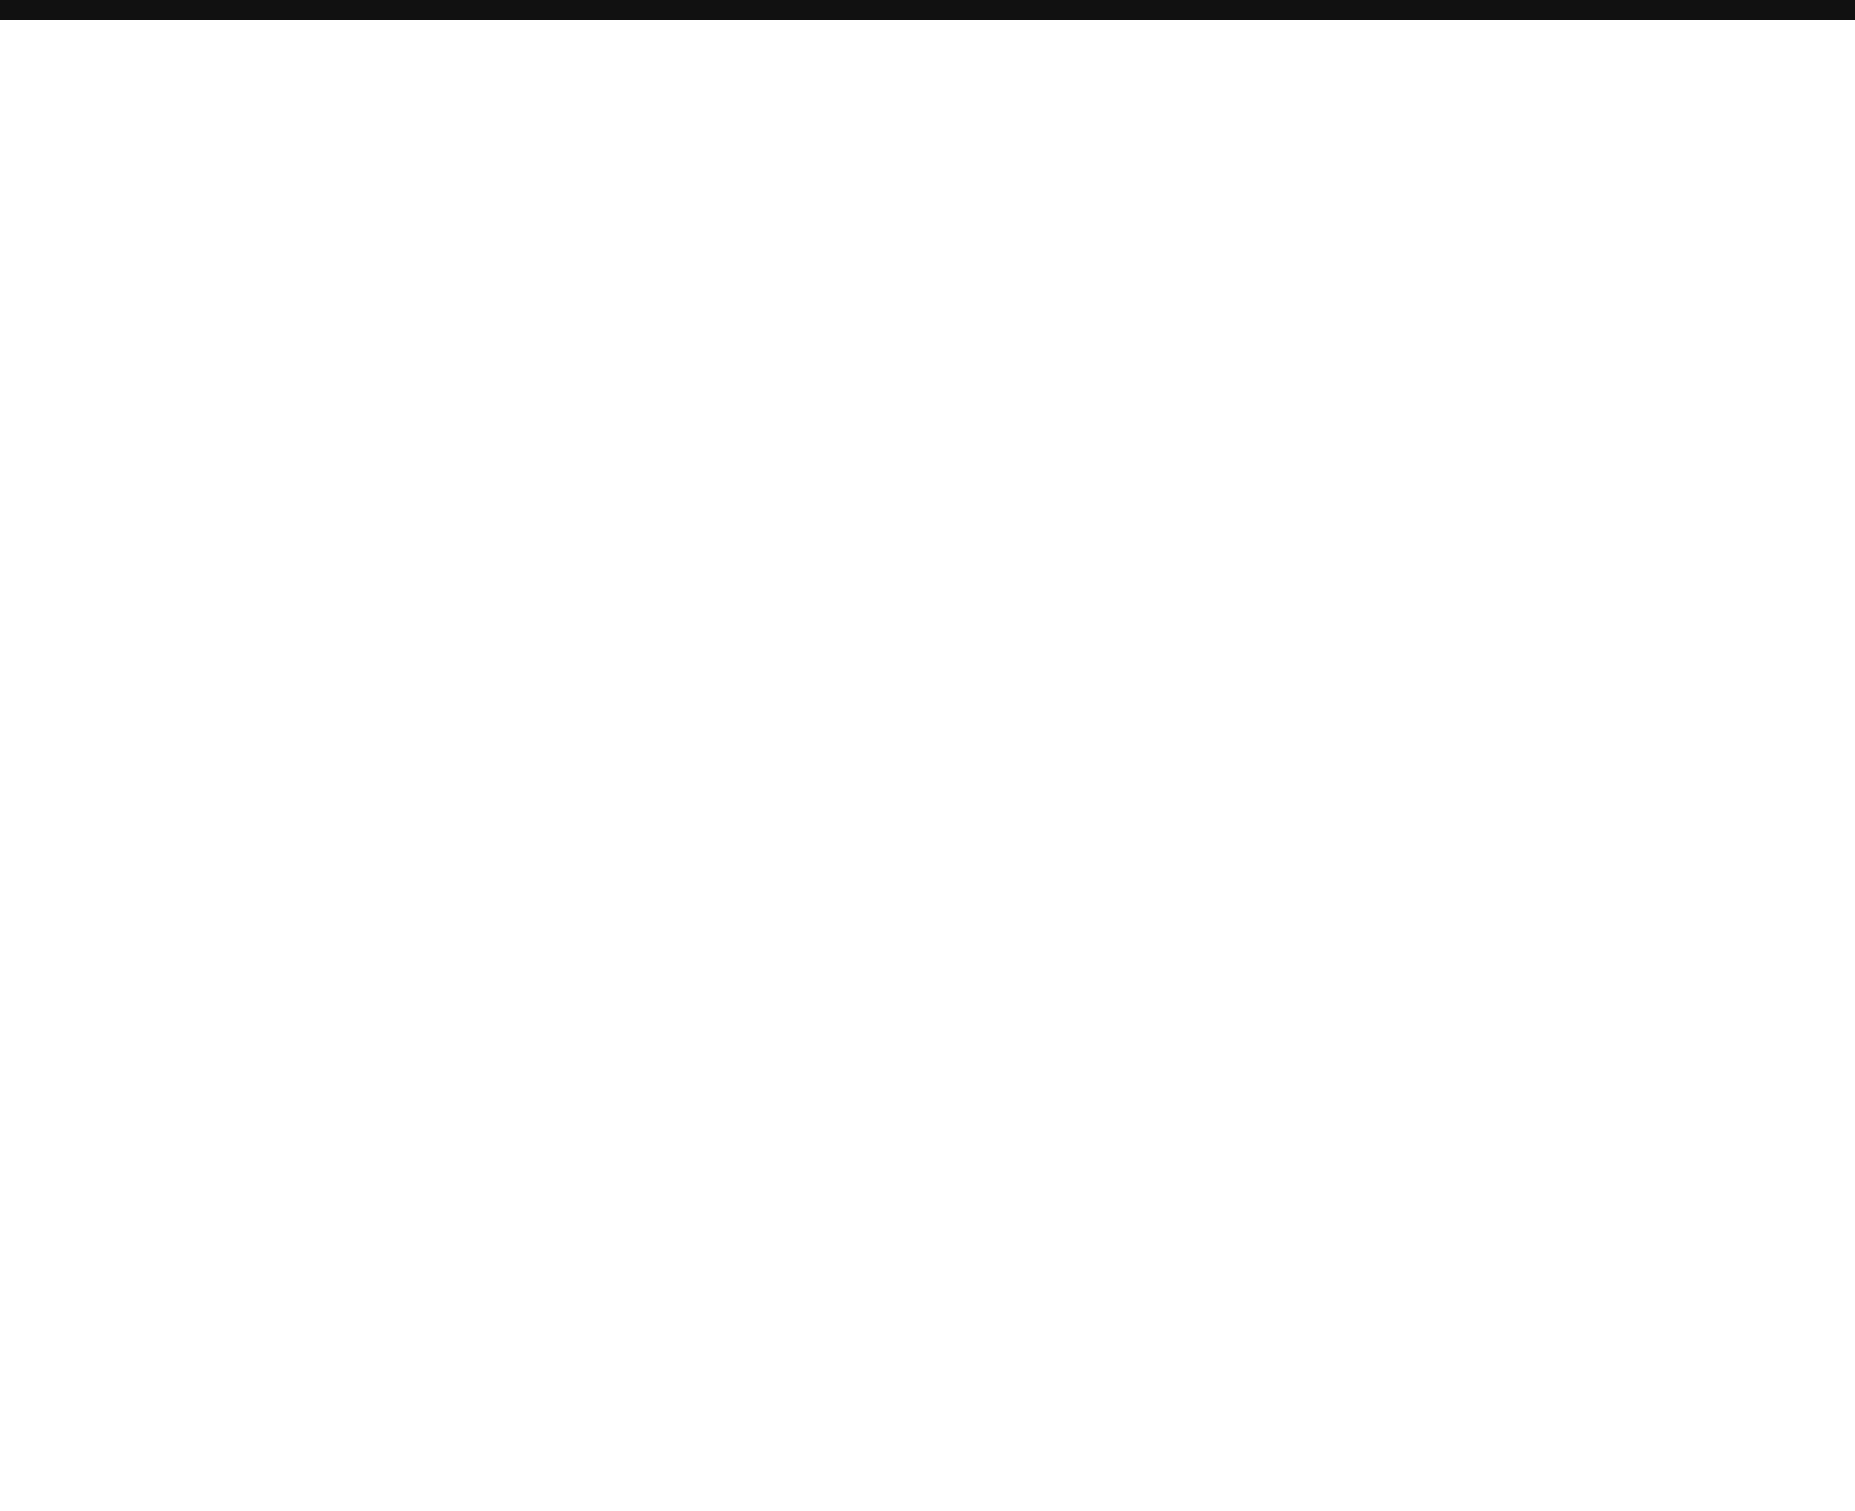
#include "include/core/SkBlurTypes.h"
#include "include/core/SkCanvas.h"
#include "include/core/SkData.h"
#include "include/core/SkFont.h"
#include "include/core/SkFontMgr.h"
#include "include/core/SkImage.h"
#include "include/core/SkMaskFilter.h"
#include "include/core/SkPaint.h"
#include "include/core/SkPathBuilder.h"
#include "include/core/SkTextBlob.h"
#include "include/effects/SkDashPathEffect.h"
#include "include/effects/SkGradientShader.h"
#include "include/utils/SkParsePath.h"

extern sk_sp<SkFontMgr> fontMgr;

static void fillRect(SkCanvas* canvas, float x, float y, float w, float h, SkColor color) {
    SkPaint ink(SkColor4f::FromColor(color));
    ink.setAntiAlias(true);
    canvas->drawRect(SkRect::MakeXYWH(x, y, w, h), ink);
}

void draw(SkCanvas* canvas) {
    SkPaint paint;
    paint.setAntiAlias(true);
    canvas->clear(0xFFFFFFFF);
    fillRect(canvas, 0, 0, 1855, 20, 0xFF111111);
}
